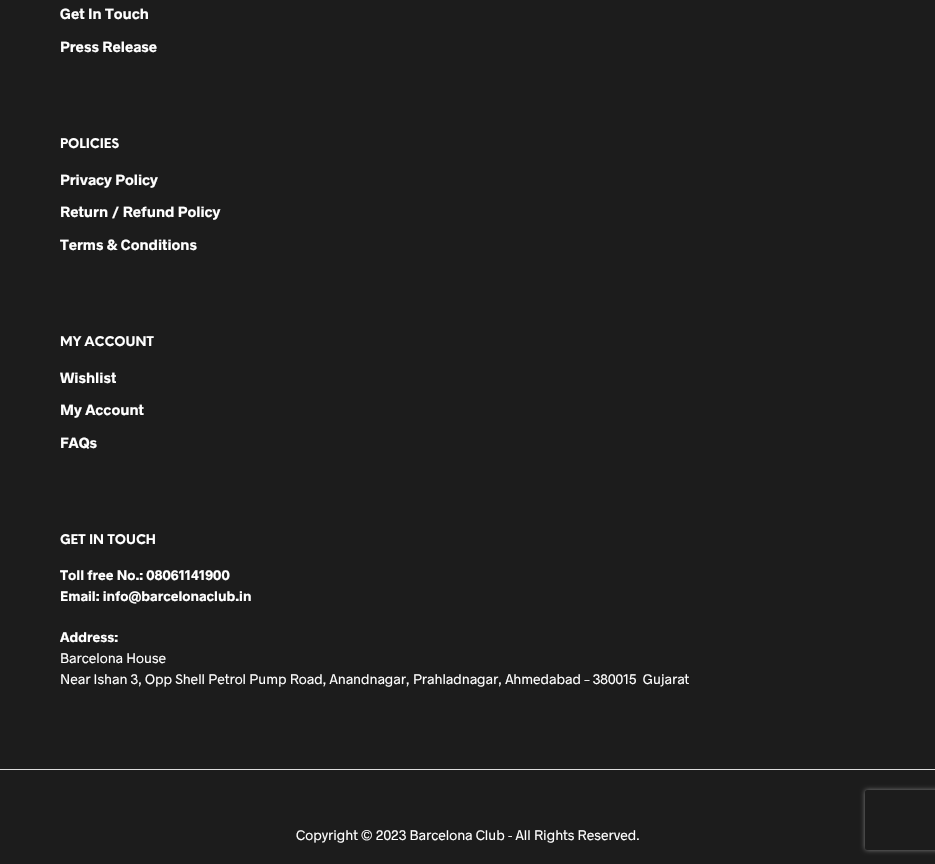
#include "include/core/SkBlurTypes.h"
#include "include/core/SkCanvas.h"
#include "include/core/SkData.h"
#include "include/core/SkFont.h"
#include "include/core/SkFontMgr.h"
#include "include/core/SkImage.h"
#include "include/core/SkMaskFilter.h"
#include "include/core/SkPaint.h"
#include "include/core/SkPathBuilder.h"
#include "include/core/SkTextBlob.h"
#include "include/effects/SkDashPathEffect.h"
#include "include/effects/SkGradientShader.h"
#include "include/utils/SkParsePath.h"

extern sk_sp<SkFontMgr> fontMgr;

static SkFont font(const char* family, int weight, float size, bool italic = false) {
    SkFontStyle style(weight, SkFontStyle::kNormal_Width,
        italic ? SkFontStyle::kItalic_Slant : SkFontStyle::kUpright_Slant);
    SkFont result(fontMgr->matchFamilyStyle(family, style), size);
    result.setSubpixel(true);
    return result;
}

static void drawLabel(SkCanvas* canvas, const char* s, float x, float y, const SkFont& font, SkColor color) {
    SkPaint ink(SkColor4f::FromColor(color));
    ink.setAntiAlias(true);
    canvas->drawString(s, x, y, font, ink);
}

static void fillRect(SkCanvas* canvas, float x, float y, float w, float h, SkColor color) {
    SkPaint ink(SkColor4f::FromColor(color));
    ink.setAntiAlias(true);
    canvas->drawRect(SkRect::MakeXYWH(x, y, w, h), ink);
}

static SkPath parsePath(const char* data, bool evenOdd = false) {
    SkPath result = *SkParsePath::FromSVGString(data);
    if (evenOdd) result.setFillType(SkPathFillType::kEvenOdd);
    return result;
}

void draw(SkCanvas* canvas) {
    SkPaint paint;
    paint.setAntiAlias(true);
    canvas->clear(0xFF1C1C1C);
    fillRect(canvas, 0, 769, 935, 1, 0xFFDDDDDD);
    SkFont font1 = font("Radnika", 700, 15);
    drawLabel(canvas, "Get In Touch", 60, 19, font1, 0xFFFFFFFF);
    drawLabel(canvas, "Press Release", 60, 52, font1, 0xFFFFFFFF);
    SkFont font2 = font("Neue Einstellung", 700, 13);
    drawLabel(canvas, "POLICIES", 60, 148, font2, 0xFFFFFFFF);
    drawLabel(canvas, "Privacy Policy", 60, 185, font1, 0xFFFFFFFF);
    drawLabel(canvas, "Return / Refund Policy", 60, 217, font1, 0xFFFFFFFF);
    drawLabel(canvas, "Terms & Conditions", 60, 250, font1, 0xFFFFFFFF);
    drawLabel(canvas, "MY ACCOUNT", 60, 346, font2, 0xFFFFFFFF);
    drawLabel(canvas, "Wishlist", 60, 383, font1, 0xFFFFFFFF);
    drawLabel(canvas, "My Account", 60, 415, font1, 0xFFFFFFFF);
    drawLabel(canvas, "FAQs", 60, 448, font1, 0xFFFFFFFF);
    drawLabel(canvas, "GET IN TOUCH", 60, 544, font2, 0xFFFFFFFF);
    SkFont font3 = font("Radnika", 700, 14);
    drawLabel(canvas, "Toll free No.: 08061141900", 60, 580, font3, 0xFFFFFFFF);
    drawLabel(canvas, "Email: info@barcelonaclub.in", 60, 601, font3, 0xFFFFFFFF);
    drawLabel(canvas, "Address:", 60, 642, font3, 0xFFFFFFFF);
    SkFont font4 = font("Radnika", 400, 14);
    drawLabel(canvas, "Barcelona House", 60, 663, font4, 0xFFFFFFFF);
    drawLabel(canvas, "Near Ishan 3, Opp Shell Petrol Pump Road, Anandnagar, Prahladnagar, Ahmedabad – 380015  Gujarat", 60, 684, font4, 0xFFFFFFFF);
    drawLabel(canvas, "Copyright © 2023 Barcelona Club - All Rights Reserved.", 296, 840, font4, 0xFFFFFFFF);
    canvas->save();
    canvas->clipPath(parsePath("M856 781H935V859H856ZM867 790H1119C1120 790 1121 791 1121 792V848C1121 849 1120 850 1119 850H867C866 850 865 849 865 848V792C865 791 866 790 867 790Z", true), true);
    paint.setColor(0xFF808080);
    paint.setMaskFilter(SkMaskFilter::MakeBlur(kNormal_SkBlurStyle, 2.5f));
    canvas->drawRoundRect(SkRect::MakeXYWH(865, 790, 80, 60), 2, 2, paint);
    paint.setMaskFilter(nullptr);
    canvas->restore();
}
